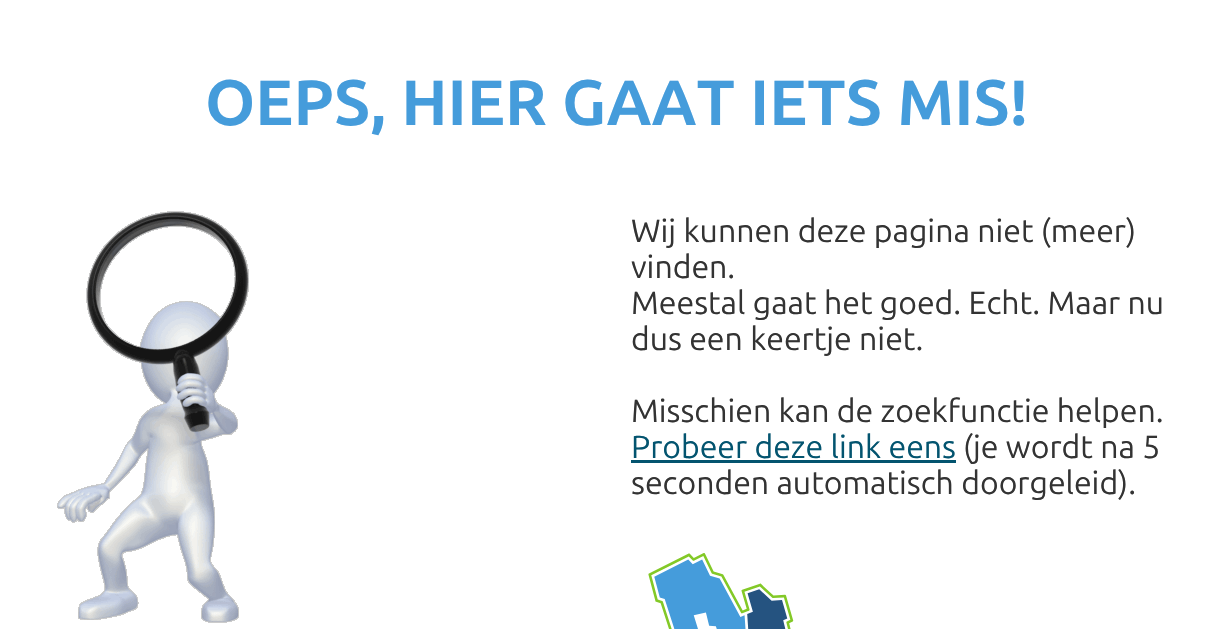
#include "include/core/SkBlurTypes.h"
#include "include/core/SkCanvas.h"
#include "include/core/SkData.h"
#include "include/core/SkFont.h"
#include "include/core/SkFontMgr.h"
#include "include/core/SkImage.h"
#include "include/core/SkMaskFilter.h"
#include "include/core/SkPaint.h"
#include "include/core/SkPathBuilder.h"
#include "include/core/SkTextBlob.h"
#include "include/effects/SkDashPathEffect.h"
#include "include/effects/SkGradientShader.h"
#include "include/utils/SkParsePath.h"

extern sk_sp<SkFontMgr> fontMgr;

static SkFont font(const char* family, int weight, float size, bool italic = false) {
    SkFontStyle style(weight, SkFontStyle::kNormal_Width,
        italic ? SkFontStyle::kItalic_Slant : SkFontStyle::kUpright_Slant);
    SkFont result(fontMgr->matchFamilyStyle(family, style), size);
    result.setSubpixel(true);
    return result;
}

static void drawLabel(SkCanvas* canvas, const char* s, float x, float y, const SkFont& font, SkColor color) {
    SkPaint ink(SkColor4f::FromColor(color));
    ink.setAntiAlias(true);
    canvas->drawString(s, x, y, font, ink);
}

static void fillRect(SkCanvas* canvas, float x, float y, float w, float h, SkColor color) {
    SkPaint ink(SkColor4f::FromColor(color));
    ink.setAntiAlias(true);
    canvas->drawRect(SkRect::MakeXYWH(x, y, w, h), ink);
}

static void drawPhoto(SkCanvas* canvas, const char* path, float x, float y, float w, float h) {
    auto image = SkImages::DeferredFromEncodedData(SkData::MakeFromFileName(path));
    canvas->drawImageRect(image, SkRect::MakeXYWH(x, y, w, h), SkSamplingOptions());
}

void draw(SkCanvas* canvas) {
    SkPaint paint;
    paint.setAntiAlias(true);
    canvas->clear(0xFFFFFFFF);
    SkFont font1 = font("Ubuntu", 700, 64);
    drawLabel(canvas, "OEPS, HIER GAAT IETS MIS!", 205, 125, font1, 0xFF459CDB);
    drawPhoto(canvas, "assets/img1.png", 57, 211, 192, 412);
    SkFont font2 = font("Ubuntu", 400, 32);
    drawLabel(canvas, "Wij kunnen deze pagina niet (meer)", 631, 242, font2, 0xFF333333);
    drawLabel(canvas, "vinden.", 631, 278, font2, 0xFF333333);
    drawLabel(canvas, "Meestal gaat het goed. Echt. Maar nu", 631, 314, font2, 0xFF333333);
    drawLabel(canvas, "dus een keertje niet.", 631, 350, font2, 0xFF333333);
    drawLabel(canvas, "Misschien kan de zoekfunctie helpen.", 631, 422, font2, 0xFF333333);
    drawLabel(canvas, "Probeer deze link eens", 631, 458, font2, 0xFF03546F);
    fillRect(canvas, 631, 460, 325, 3, 0xFF03546F);
    drawLabel(canvas, "(je wordt na 5", 963, 458, font2, 0xFF333333);
    drawLabel(canvas, "seconden automatisch doorgeleid).", 631, 494, font2, 0xFF333333);
    drawPhoto(canvas, "assets/img2.png", 648, 553, 146, 76);
}
